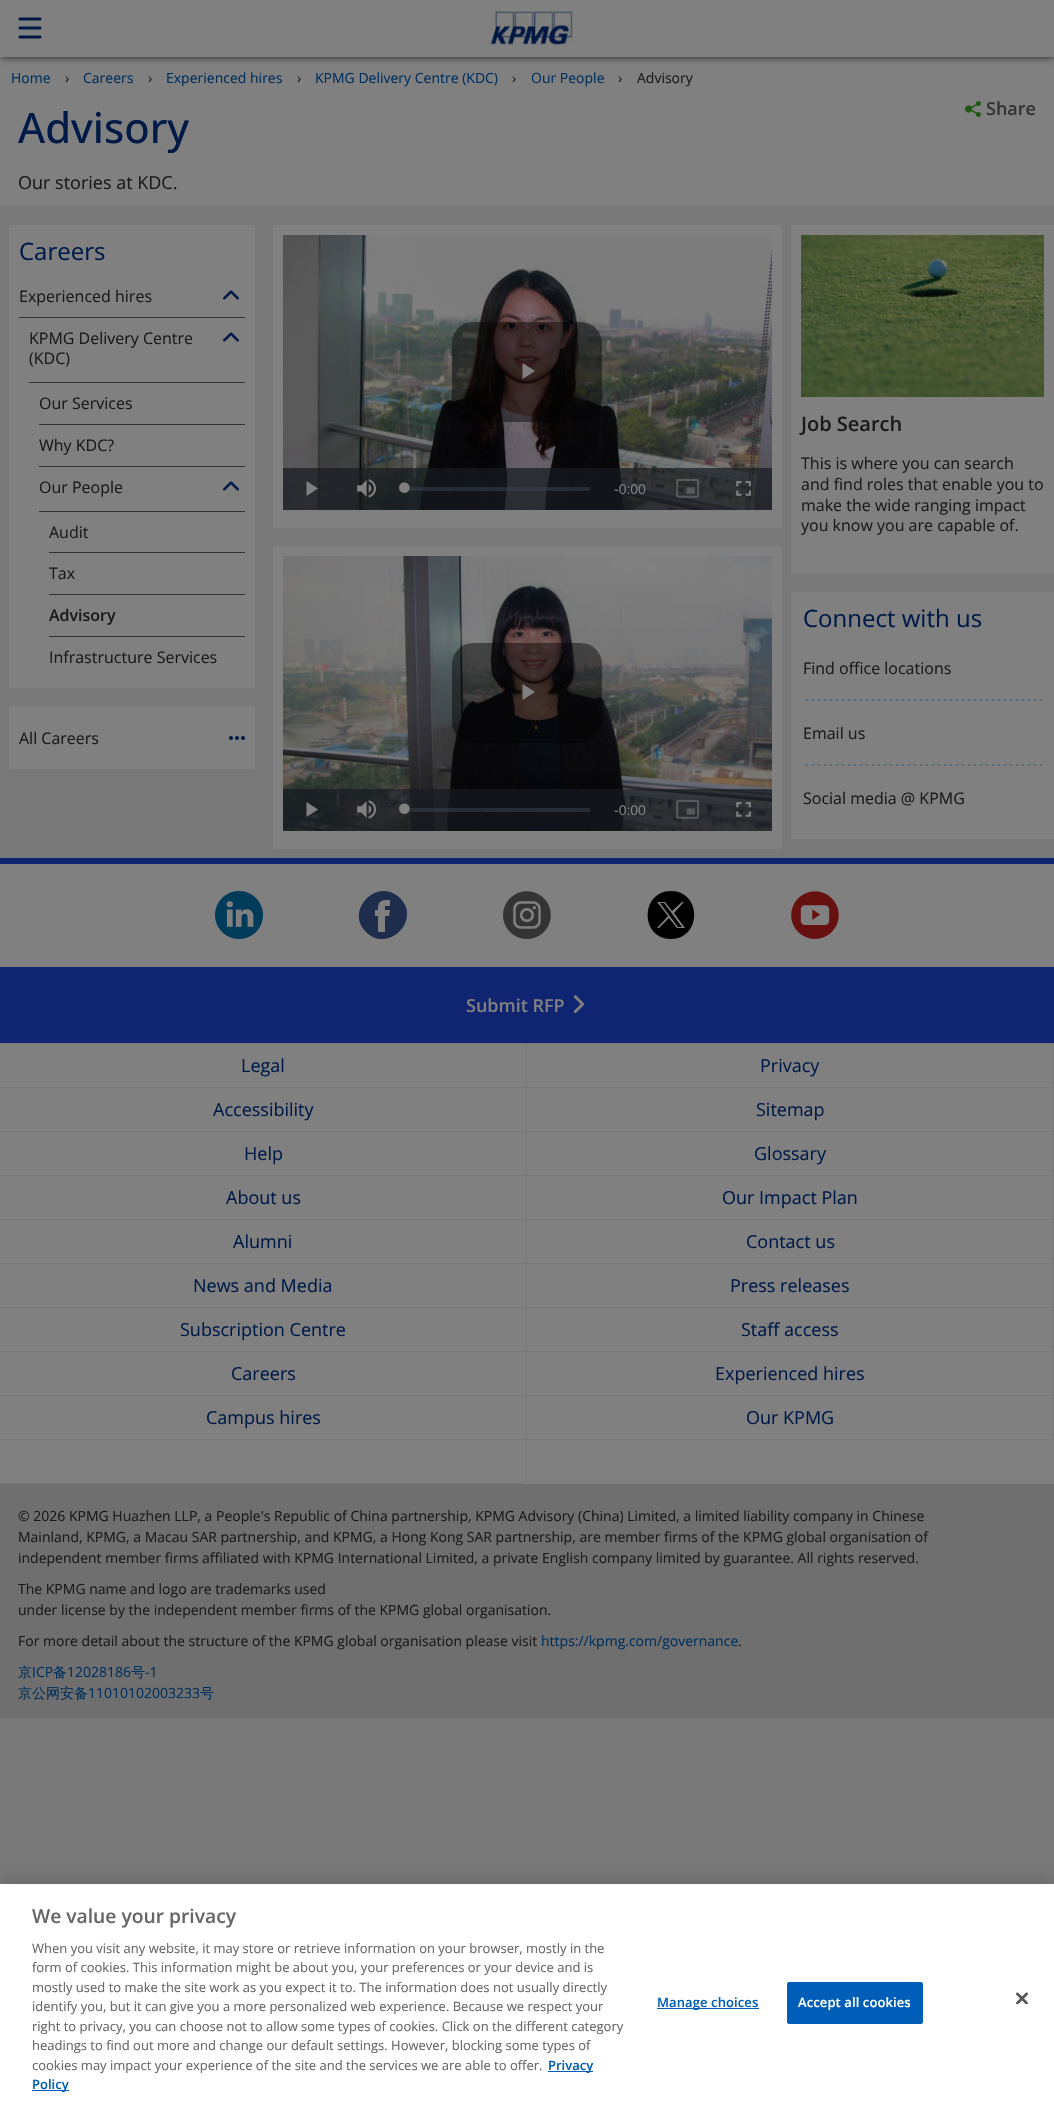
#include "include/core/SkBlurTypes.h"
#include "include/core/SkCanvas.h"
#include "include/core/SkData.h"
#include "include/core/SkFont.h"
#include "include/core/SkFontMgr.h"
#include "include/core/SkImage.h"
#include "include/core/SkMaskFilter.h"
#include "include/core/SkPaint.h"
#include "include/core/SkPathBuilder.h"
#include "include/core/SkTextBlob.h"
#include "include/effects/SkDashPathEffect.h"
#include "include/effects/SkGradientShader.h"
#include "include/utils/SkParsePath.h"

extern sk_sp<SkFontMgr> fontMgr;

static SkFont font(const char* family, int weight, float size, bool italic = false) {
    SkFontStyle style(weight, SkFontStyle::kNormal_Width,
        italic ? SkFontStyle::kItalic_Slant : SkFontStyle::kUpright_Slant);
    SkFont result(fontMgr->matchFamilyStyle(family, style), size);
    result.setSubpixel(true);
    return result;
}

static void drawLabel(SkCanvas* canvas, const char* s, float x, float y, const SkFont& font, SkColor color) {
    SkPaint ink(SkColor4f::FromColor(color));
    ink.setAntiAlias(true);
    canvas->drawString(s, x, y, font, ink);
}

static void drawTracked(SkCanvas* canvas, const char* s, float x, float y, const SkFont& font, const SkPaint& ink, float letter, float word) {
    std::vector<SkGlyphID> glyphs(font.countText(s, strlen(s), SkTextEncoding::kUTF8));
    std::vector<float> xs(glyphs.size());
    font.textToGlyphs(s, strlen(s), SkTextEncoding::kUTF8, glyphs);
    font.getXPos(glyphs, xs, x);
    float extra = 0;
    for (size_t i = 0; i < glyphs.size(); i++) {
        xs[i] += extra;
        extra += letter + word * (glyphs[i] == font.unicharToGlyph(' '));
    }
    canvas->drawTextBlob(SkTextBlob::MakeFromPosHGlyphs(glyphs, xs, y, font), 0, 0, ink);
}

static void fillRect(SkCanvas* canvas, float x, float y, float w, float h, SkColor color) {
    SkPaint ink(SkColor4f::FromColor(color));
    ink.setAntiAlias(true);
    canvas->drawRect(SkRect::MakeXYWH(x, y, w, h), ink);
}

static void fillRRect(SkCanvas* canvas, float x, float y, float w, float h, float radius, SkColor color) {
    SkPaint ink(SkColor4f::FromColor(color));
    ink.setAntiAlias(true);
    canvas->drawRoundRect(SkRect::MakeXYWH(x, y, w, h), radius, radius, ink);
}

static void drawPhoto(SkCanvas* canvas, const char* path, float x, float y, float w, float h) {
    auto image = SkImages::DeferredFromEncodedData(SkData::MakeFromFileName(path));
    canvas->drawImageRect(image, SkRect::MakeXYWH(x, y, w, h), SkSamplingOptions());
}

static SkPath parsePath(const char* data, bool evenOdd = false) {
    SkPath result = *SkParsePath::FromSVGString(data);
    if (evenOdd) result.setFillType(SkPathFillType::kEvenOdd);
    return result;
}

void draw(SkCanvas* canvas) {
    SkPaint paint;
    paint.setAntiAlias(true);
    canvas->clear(0xFF787878);
    fillRect(canvas, 0, 57, 1054, 149, 0xFF808080);
    paint.setColor(0xFF000000);
    paint.setMaskFilter(SkMaskFilter::MakeBlur(kNormal_SkBlurStyle, 4));
    canvas->drawRoundRect(SkRect::MakeXYWH(0, -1, 1054, 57), 4, 4, paint);
    paint.setMaskFilter(nullptr);
    fillRect(canvas, 0, 0, 1054, 57, 0xFF808080);
    paint.setStroke(true);
    paint.setStrokeWidth(3);
    paint.setStrokeCap(SkPaint::kRound_Cap);
    paint.setColor(0xFF001A47);
    canvas->drawPath(parsePath("M20 19H40M20 28H40M20 37H40"), paint);
    drawPhoto(canvas, "assets/img1.png", 489, 11, 85, 34);
    SkFont font1 = font("Open Sans", 400, 14);
    drawLabel(canvas, "Home", 11, 83, font1, 0xFF002F5C);
    drawLabel(canvas, "›", 65, 83, font1, 0xFF1A1A1A);
    drawLabel(canvas, "Careers", 83, 83, font1, 0xFF002F5C);
    drawLabel(canvas, "›", 148, 83, font1, 0xFF1A1A1A);
    drawLabel(canvas, "Experienced hires", 166, 83, font1, 0xFF002F5C);
    drawLabel(canvas, "›", 297, 83, font1, 0xFF1A1A1A);
    drawLabel(canvas, "KPMG Delivery Centre (KDC)", 315, 83, font1, 0xFF002F5C);
    drawLabel(canvas, "›", 512, 83, font1, 0xFF1A1A1A);
    drawLabel(canvas, "Our People", 531, 83, font1, 0xFF002F5C);
    drawLabel(canvas, "›", 618, 83, font1, 0xFF1A1A1A);
    drawLabel(canvas, "Advisory", 637, 83, font1, 0xFF1A1A1A);
    drawPhoto(canvas, "assets/img2.png", 965, 101, 16, 16);
    SkFont font2 = font("Open Sans", 600, 18);
    drawLabel(canvas, "Share", 986, 115, font2, 0xFF333333);
    SkFont font3 = font("Open Sans", 500, 42);
    drawLabel(canvas, "Advisory", 18, 143, font3, 0xFF001A47);
    SkFont font4 = font("Open Sans", 400, 18);
    drawLabel(canvas, "Our stories at KDC.", 18, 189, font4, 0xFF1A1A1A);
    fillRect(canvas, 9, 225, 246, 463, 0xFF808080);
    SkFont font5 = font("Open Sans", 400, 24);
    drawLabel(canvas, "Careers", 19, 260, font5, 0xFF001A47);
    SkFont font6 = font("Open Sans", 400, 16);
    drawLabel(canvas, "Experienced hires", 19, 302, font6, 0xFF1A1A1A);
    drawPhoto(canvas, "assets/img3.png", 223, 290, 16, 10);
    fillRect(canvas, 19, 317, 226, 1, 0xFF333333);
    drawLabel(canvas, "KPMG Delivery Centre", 29, 344, font6, 0xFF1A1A1A);
    drawLabel(canvas, "(KDC)", 29, 364, font6, 0xFF1A1A1A);
    drawPhoto(canvas, "assets/img3.png", 223, 332, 16, 10);
    fillRect(canvas, 29, 382, 216, 1, 0xFF333333);
    fillRect(canvas, 39, 424, 206, 1, 0xFF333333);
    drawLabel(canvas, "Our Services", 39, 409, font6, 0xFF1A1A1A);
    fillRect(canvas, 39, 466, 206, 1, 0xFF333333);
    drawLabel(canvas, "Why KDC?", 39, 451, font6, 0xFF1A1A1A);
    drawLabel(canvas, "Our People", 39, 493, font6, 0xFF1A1A1A);
    drawPhoto(canvas, "assets/img3.png", 223, 481, 16, 10);
    fillRect(canvas, 39, 511, 206, 1, 0xFF333333);
    fillRect(canvas, 49, 552, 196, 1, 0xFF333333);
    drawLabel(canvas, "Audit", 49, 538, font6, 0xFF1A1A1A);
    fillRect(canvas, 49, 594, 196, 1, 0xFF333333);
    drawLabel(canvas, "Tax", 49, 579, font6, 0xFF1A1A1A);
    fillRect(canvas, 49, 636, 196, 1, 0xFF333333);
    SkFont font7 = font("Open Sans", 600, 16);
    drawLabel(canvas, "Advisory", 49, 621, font7, 0xFF1A1A1A);
    drawLabel(canvas, "Infrastructure Services", 49, 663, font6, 0xFF1A1A1A);
    fillRect(canvas, 9, 706, 246, 63, 0xFF808080);
    drawLabel(canvas, "All Careers", 19, 744, font6, 0xFF1A1A1A);
    drawPhoto(canvas, "assets/img4.png", 229, 736, 16, 4);
    fillRect(canvas, 273, 225, 509, 303, 0xFF808080);
    drawPhoto(canvas, "assets/img5.png", 283, 235, 489, 275);
    fillRRect(canvas, 452, 322, 150, 100, 21, 0x73000000);
    paint.setStroke(false);
    paint.setColor(0xFF808080);
    canvas->drawPath(parsePath("M522.5 363V379L535 371Z"), paint);
    fillRect(canvas, 283, 468, 489, 42, 0xB3161A20);
    canvas->drawPath(parsePath("M306.5 481V496L318 488.5Z"), paint);
    drawPhoto(canvas, "assets/img6.png", 357, 479, 20, 19);
    fillRect(canvas, 405, 487, 185, 4, 0x803A4350);
    drawPhoto(canvas, "assets/img7.png", 399, 482, 11, 11);
    SkFont font8 = font("Liberation Sans", 400, 14);
    drawLabel(canvas, "-0:00", 614, 494, font8, 0xFF808080);
    drawPhoto(canvas, "assets/img8.png", 676, 478, 24, 20);
    drawPhoto(canvas, "assets/img9.png", 736, 481, 15, 15);
    fillRect(canvas, 273, 546, 509, 303, 0xFF808080);
    drawPhoto(canvas, "assets/img10.png", 283, 556, 489, 275);
    fillRRect(canvas, 452, 643, 150, 100, 21, 0x73000000);
    canvas->drawPath(parsePath("M522.5 684V700L535 692Z"), paint);
    fillRect(canvas, 283, 789, 489, 42, 0xB3161A20);
    canvas->drawPath(parsePath("M306.5 802V817L318 809.5Z"), paint);
    drawPhoto(canvas, "assets/img11.png", 357, 800, 19, 19);
    fillRect(canvas, 405, 808, 185, 4, 0x803A4350);
    drawPhoto(canvas, "assets/img12.png", 399, 803, 11, 11);
    drawLabel(canvas, "-0:00", 614, 815, font8, 0xFF808080);
    drawPhoto(canvas, "assets/img13.png", 676, 799, 24, 20);
    drawPhoto(canvas, "assets/img14.png", 736, 802, 15, 15);
    fillRect(canvas, 791, 225, 263, 349, 0xFF808080);
    drawPhoto(canvas, "assets/img15.png", 801, 235, 243, 162);
    SkFont font9 = font("Open Sans", 600, 20);
    drawLabel(canvas, "Job Search", 801, 431, font9, 0xFF1A1A1A);
    drawLabel(canvas, "This is where you can search", 801, 469, font6, 0xFF1A1A1A);
    drawLabel(canvas, "and find roles that enable you to", 801, 490, font6, 0xFF1A1A1A);
    drawLabel(canvas, "make the wide ranging impact", 801, 511, font6, 0xFF1A1A1A);
    drawLabel(canvas, "you know you are capable of.", 801, 531, font6, 0xFF1A1A1A);
    fillRect(canvas, 791, 592, 263, 247, 0xFF808080);
    drawLabel(canvas, "Connect with us", 803, 627, font5, 0xFF001A47);
    drawLabel(canvas, "Find office locations", 803, 674, font6, 0xFF1A1A1A);
    drawPhoto(canvas, "assets/img16.png", 805, 699, 237, 2);
    drawLabel(canvas, "Email us", 803, 739, font6, 0xFF1A1A1A);
    drawPhoto(canvas, "assets/img16.png", 805, 764, 237, 2);
    drawLabel(canvas, "Social media @ KPMG", 803, 804, font6, 0xFF1A1A1A);
    fillRect(canvas, 0, 864, 1054, 620, 0xFF808080);
    fillRect(canvas, 0, 858, 1054, 6, 0xFF0F2571);
    drawPhoto(canvas, "assets/img17.png", 215, 891, 48, 48);
    paint.setColor(0xFF1E2D4C);
    canvas->drawPath(parsePath("M400 898C378 876 344 910 366 932C388 954 422 920 400 898ZM390 906C384 906 385 905 385 910H390L389 916H385V932H378V916H375V910H378C378 901 380 900 390 900Z"), paint);
    drawPhoto(canvas, "assets/img18.png", 503, 891, 48, 48);
    paint.setColor(0xFF000000);
    canvas->drawPath(parsePath("M660 903L678 927H682L664 903ZM671 891C640 891 640 939 671 939C702 939 702 891 671 891ZM677 928L669 918L659 928H657L668 916L657 902H665L672 911L682 902H684L674 913L685 928Z"), paint);
    drawPhoto(canvas, "assets/img19.png", 791, 891, 48, 48);
    fillRect(canvas, 0, 967, 1054, 76, 0xFF0F2571);
    drawLabel(canvas, "Submit RFP", 466, 1012, font2, 0xFF808080);
    drawPhoto(canvas, "assets/img20.png", 573, 995, 11, 18);
    fillRect(canvas, 0, 1043, 1054, 1, 0xFF787878);
    fillRect(canvas, 526, 1044, 1, 440, 0xFF787878);
    fillRect(canvas, 0, 1087, 527, 1, 0xFF787878);
    drawLabel(canvas, "Legal", 241, 1072, font4, 0xFF001A47);
    fillRect(canvas, 1053, 1044, 1, 396, 0xFF787878);
    fillRect(canvas, 527, 1087, 527, 1, 0xFF787878);
    drawLabel(canvas, "Privacy", 760, 1072, font4, 0xFF001A47);
    fillRect(canvas, 0, 1131, 1054, 1, 0xFF787878);
    drawLabel(canvas, "Accessibility", 213, 1116, font4, 0xFF001A47);
    drawLabel(canvas, "Sitemap", 756, 1116, font4, 0xFF001A47);
    fillRect(canvas, 0, 1175, 1054, 1, 0xFF787878);
    drawLabel(canvas, "Help", 244, 1160, font4, 0xFF001A47);
    drawLabel(canvas, "Glossary", 754, 1160, font4, 0xFF001A47);
    fillRect(canvas, 0, 1219, 1054, 1, 0xFF787878);
    drawLabel(canvas, "About us", 226, 1204, font4, 0xFF001A47);
    drawLabel(canvas, "Our Impact Plan", 722, 1204, font4, 0xFF001A47);
    fillRect(canvas, 0, 1263, 1054, 1, 0xFF787878);
    drawLabel(canvas, "Alumni", 233, 1248, font4, 0xFF001A47);
    drawLabel(canvas, "Contact us", 746, 1248, font4, 0xFF001A47);
    fillRect(canvas, 0, 1307, 1054, 1, 0xFF787878);
    drawLabel(canvas, "News and Media", 193, 1292, font4, 0xFF001A47);
    drawLabel(canvas, "Press releases", 730, 1292, font4, 0xFF001A47);
    fillRect(canvas, 0, 1351, 1054, 1, 0xFF787878);
    drawLabel(canvas, "Subscription Centre", 180, 1336, font4, 0xFF001A47);
    drawLabel(canvas, "Staff access", 741, 1336, font4, 0xFF001A47);
    fillRect(canvas, 0, 1395, 1054, 1, 0xFF787878);
    drawLabel(canvas, "Careers", 231, 1380, font4, 0xFF001A47);
    drawLabel(canvas, "Experienced hires", 715, 1380, font4, 0xFF001A47);
    fillRect(canvas, 0, 1439, 1054, 1, 0xFF787878);
    drawLabel(canvas, "Campus hires", 206, 1424, font4, 0xFF001A47);
    drawLabel(canvas, "Our KPMG", 746, 1424, font4, 0xFF001A47);
    fillRect(canvas, 0, 1483, 527, 1, 0xFF787878);
    fillRect(canvas, 0, 1484, 1054, 234, 0xFF6F6F6F);
    drawLabel(canvas, "© 2026 KPMG Huazhen LLP, a People's Republic of China partnership, KPMG Advisory (China) Limited, a limited liability company in Chinese", 18, 1521, font1, 0xFF1A1A1A);
    drawLabel(canvas, "Mainland, KPMG, a Macau SAR partnership, and KPMG, a Hong Kong SAR partnership, are member firms of the KPMG global organisation of", 18, 1542, font1, 0xFF1A1A1A);
    drawLabel(canvas, "independent member firms affiliated with KPMG International Limited, a private English company limited by guarantee. All rights reserved.", 18, 1563, font1, 0xFF1A1A1A);
    drawLabel(canvas, "The KPMG name and logo are trademarks used", 18, 1594, font1, 0xFF1A1A1A);
    drawLabel(canvas, "under license by the independent member firms of the KPMG global organisation.", 18, 1615, font1, 0xFF1A1A1A);
    drawLabel(canvas, "For more detail about the structure of the KPMG global organisation please visit", 18, 1646, font1, 0xFF1A1A1A);
    drawLabel(canvas, "https://kpmg.com/governance", 541, 1646, font1, 0xFF002F5C);
    drawLabel(canvas, ".", 738, 1646, font1, 0xFF1A1A1A);
    SkFont font10 = font("WenQuanYi Zen Hei", 500, 14);
    drawLabel(canvas, "京", 18, 1677, font10, 0xFF002F5C);
    drawLabel(canvas, "ICP", 32, 1677, font1, 0xFF002F5C);
    drawLabel(canvas, "备", 53, 1677, font10, 0xFF002F5C);
    drawLabel(canvas, "12028186", 67, 1677, font1, 0xFF002F5C);
    drawLabel(canvas, "号", 131, 1677, font10, 0xFF002F5C);
    drawLabel(canvas, "-1", 145, 1677, font1, 0xFF002F5C);
    drawLabel(canvas, "京公网安备", 18, 1698, font10, 0xFF002F5C);
    drawLabel(canvas, "11010102003233", 88, 1698, font1, 0xFF002F5C);
    drawLabel(canvas, "号", 200, 1698, font10, 0xFF002F5C);
    paint.setColor(0x33000000);
    paint.setMaskFilter(SkMaskFilter::MakeBlur(kNormal_SkBlurStyle, 9));
    canvas->drawRect(SkRect::MakeXYWH(0, 1884, 1054, 234), paint);
    paint.setMaskFilter(nullptr);
    fillRect(canvas, 0, 1884, 1054, 234, 0xFFFFFFFF);
    SkFont font11 = font("Open Sans", 600, 19.25f);
    drawLabel(canvas, "We value your privacy", 32, 1923, font11, 0xFF666666);
    SkFont font12 = font("Open Sans", 400, 13);
    drawLabel(canvas, "When you visit any website, it may store or retrieve information on your browser, mostly in the", 32, 1953, font12, 0xFF666666);
    drawLabel(canvas, "form of cookies. This information might be about you, your preferences or your device and is", 32, 1972, font12, 0xFF666666);
    drawLabel(canvas, "mostly used to make the site work as you expect it to. The information does not usually directly", 32, 1992, font12, 0xFF666666);
    drawLabel(canvas, "identify you, but it can give you a more personalized web experience. Because we respect your", 32, 2011, font12, 0xFF666666);
    drawLabel(canvas, "right to privacy, you can choose not to allow some types of cookies. Click on the different category", 32, 2031, font12, 0xFF666666);
    drawLabel(canvas, "headings to find out more and change our default settings. However, blocking some types of", 32, 2050, font12, 0xFF666666);
    drawLabel(canvas, "cookies may impact your experience of the site and the services we are able to offer.", 32, 2070, font12, 0xFF666666);
    fillRect(canvas, 548, 2071, 45, 1, 0xFF005EB8);
    SkFont font13 = font("Open Sans", 600, 13);
    drawLabel(canvas, "Privacy", 548, 2070, font13, 0xFF005EB8);
    fillRect(canvas, 32, 2090, 37, 1, 0xFF005EB8);
    drawLabel(canvas, "Policy", 32, 2089, font13, 0xFF005EB8);
    fillRect(canvas, 657, 2008, 102, 1, 0xFF005EB8);
    paint.setColor(0xFF005EB8);
    drawTracked(canvas, "Manage choices", 657, 2007, font13, paint, 0.1f, 0);
    canvas->drawRoundRect(SkRect::MakeXYWH(787.5f, 1982.5f, 135, 41), 1.5f, 1.5f, paint);
    paint.setStroke(true);
    paint.setStrokeWidth(1);
    paint.setStrokeCap(SkPaint::kButt_Cap);
    canvas->drawRoundRect(SkRect::MakeXYWH(787.5f, 1982.5f, 135, 41), 1.5f, 1.5f, paint);
    paint.setStroke(false);
    paint.setColor(0xFFFFFFFF);
    drawTracked(canvas, "Accept all cookies", 798, 2007, font13, paint, 0.1f, 0);
    drawPhoto(canvas, "assets/img21.png", 1016, 1992, 12, 12);
}
